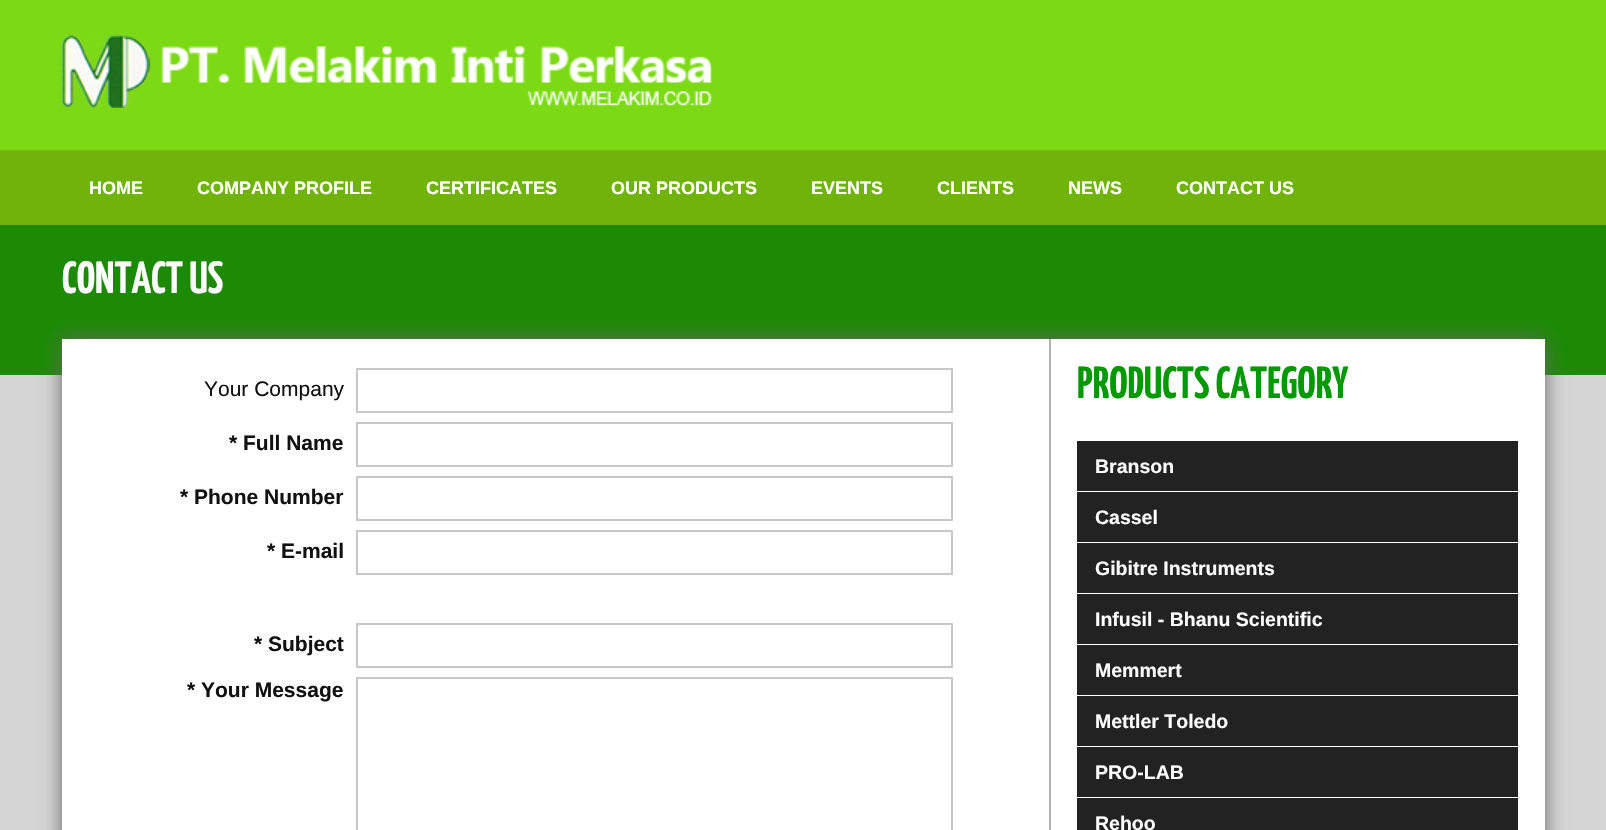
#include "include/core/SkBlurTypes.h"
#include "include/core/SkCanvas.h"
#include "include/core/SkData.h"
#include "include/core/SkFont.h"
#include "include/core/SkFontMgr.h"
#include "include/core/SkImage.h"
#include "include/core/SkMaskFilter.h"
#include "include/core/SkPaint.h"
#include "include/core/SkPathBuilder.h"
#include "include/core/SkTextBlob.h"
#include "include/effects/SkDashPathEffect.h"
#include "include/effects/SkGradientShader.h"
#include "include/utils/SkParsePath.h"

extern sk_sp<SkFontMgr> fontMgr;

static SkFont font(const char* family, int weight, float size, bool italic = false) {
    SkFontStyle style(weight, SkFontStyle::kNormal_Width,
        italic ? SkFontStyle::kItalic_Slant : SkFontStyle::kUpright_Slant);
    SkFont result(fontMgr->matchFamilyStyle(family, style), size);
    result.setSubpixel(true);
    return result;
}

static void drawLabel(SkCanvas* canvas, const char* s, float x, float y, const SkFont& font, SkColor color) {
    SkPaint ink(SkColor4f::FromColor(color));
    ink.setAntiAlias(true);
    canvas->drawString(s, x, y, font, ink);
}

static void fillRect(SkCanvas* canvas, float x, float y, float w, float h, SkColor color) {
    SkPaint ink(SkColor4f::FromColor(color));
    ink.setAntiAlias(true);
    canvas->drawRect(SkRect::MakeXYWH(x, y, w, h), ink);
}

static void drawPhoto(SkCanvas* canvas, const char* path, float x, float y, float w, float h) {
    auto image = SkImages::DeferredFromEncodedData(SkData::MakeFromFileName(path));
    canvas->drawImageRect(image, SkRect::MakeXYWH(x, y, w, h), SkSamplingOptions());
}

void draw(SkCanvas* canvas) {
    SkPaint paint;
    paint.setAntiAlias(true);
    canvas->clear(0xFFD5D5D5);
    drawPhoto(canvas, "assets/img1.png", 0, 0, 1606, 225);
    drawPhoto(canvas, "assets/img2.png", 61, 34, 651, 74);
    SkFont font1 = font("Liberation Sans", 700, 18);
    drawLabel(canvas, "HOME", 89, 194, font1, 0xFFFFFFFF);
    drawLabel(canvas, "COMPANY PROFILE", 197, 194, font1, 0xFFFFFFFF);
    drawLabel(canvas, "CERTIFICATES", 426, 194, font1, 0xFFFFFFFF);
    drawLabel(canvas, "OUR PRODUCTS", 611, 194, font1, 0xFFFFFFFF);
    drawLabel(canvas, "EVENTS", 811, 194, font1, 0xFFFFFFFF);
    drawLabel(canvas, "CLIENTS", 937, 194, font1, 0xFFFFFFFF);
    drawLabel(canvas, "NEWS", 1068, 194, font1, 0xFFFFFFFF);
    drawLabel(canvas, "CONTACT US", 1176, 194, font1, 0xFFFFFFFF);
    fillRect(canvas, 0, 225, 1606, 150, 0xFF1C8A05);
    SkFont font2 = font("Yanone Kaffeesatz", 700, 45);
    drawLabel(canvas, "CONTACT US", 62, 293, font2, 0xFFFFFFFF);
    paint.setColor(0xFF666666);
    paint.setMaskFilter(SkMaskFilter::MakeBlur(kNormal_SkBlurStyle, 9));
    canvas->drawRect(SkRect::MakeXYWH(62, 339, 1483, 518), paint);
    paint.setMaskFilter(nullptr);
    fillRect(canvas, 62, 339, 1483, 491, 0xFFFFFFFF);
    SkFont font3 = font("Liberation Sans", 400, 21);
    drawLabel(canvas, "Your Company", 204, 396, font3, 0xFF111111);
    paint.setStroke(true);
    paint.setStrokeWidth(2);
    paint.setColor(0xFFC8C8C8);
    canvas->drawRect(SkRect::MakeXYWH(357, 369, 595, 43), paint);
    SkFont font4 = font("Liberation Sans", 700, 21);
    drawLabel(canvas, "* Full Name", 229, 450, font4, 0xFF111111);
    canvas->drawRect(SkRect::MakeXYWH(357, 423, 595, 43), paint);
    drawLabel(canvas, "* Phone Number", 180, 504, font4, 0xFF111111);
    canvas->drawRect(SkRect::MakeXYWH(357, 477, 595, 43), paint);
    drawLabel(canvas, "* E-mail", 267, 558, font4, 0xFF111111);
    canvas->drawRect(SkRect::MakeXYWH(357, 531, 595, 43), paint);
    drawLabel(canvas, "* Subject", 254, 651, font4, 0xFF111111);
    canvas->drawRect(SkRect::MakeXYWH(357, 624, 595, 43), paint);
    drawLabel(canvas, "* Your Message", 187, 697, font4, 0xFF111111);
    canvas->drawRect(SkRect::MakeXYWH(357, 678, 595, 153), paint);
    fillRect(canvas, 1049, 339, 2, 491, 0xFFB0B0B0);
    drawLabel(canvas, "PRODUCTS CATEGORY", 1077, 398, font2, 0xFF009900);
    fillRect(canvas, 1077, 441, 441, 50, 0xFF222222);
    SkFont font5 = font("Liberation Sans", 700, 19.5f);
    drawLabel(canvas, "Branson", 1095, 473, font5, 0xFFFFFFFF);
    fillRect(canvas, 1077, 492, 441, 50, 0xFF222222);
    drawLabel(canvas, "Cassel", 1095, 524, font5, 0xFFFFFFFF);
    fillRect(canvas, 1077, 543, 441, 50, 0xFF222222);
    drawLabel(canvas, "Gibitre Instruments", 1095, 575, font5, 0xFFFFFFFF);
    fillRect(canvas, 1077, 594, 441, 50, 0xFF222222);
    drawLabel(canvas, "Infusil - Bhanu Scientific", 1095, 626, font5, 0xFFFFFFFF);
    fillRect(canvas, 1077, 645, 441, 50, 0xFF222222);
    drawLabel(canvas, "Memmert", 1095, 677, font5, 0xFFFFFFFF);
    fillRect(canvas, 1077, 696, 441, 50, 0xFF222222);
    drawLabel(canvas, "Mettler Toledo", 1095, 728, font5, 0xFFFFFFFF);
    fillRect(canvas, 1077, 747, 441, 50, 0xFF222222);
    drawLabel(canvas, "PRO-LAB", 1095, 779, font5, 0xFFFFFFFF);
    fillRect(canvas, 1077, 798, 441, 32, 0xFF222222);
    drawLabel(canvas, "Rehoo", 1095, 830, font5, 0xFFFFFFFF);
}
